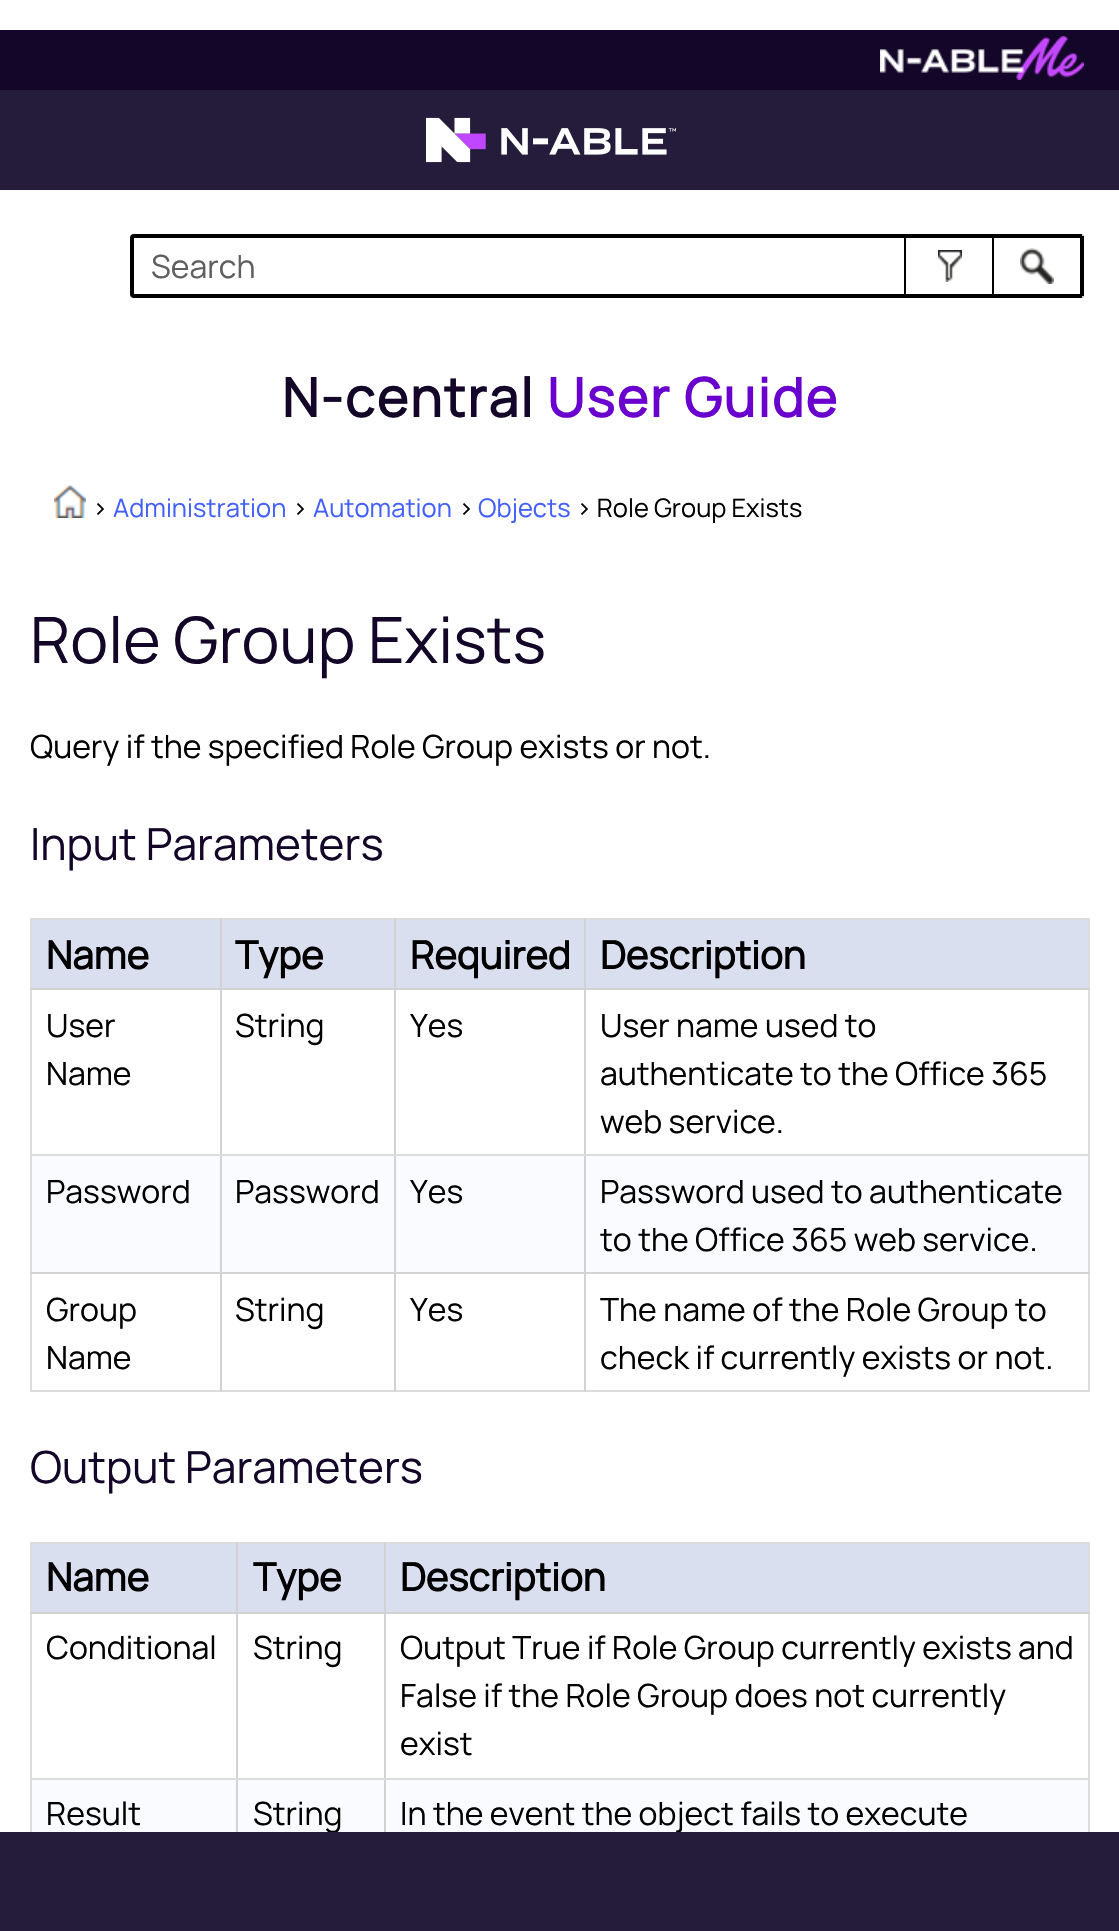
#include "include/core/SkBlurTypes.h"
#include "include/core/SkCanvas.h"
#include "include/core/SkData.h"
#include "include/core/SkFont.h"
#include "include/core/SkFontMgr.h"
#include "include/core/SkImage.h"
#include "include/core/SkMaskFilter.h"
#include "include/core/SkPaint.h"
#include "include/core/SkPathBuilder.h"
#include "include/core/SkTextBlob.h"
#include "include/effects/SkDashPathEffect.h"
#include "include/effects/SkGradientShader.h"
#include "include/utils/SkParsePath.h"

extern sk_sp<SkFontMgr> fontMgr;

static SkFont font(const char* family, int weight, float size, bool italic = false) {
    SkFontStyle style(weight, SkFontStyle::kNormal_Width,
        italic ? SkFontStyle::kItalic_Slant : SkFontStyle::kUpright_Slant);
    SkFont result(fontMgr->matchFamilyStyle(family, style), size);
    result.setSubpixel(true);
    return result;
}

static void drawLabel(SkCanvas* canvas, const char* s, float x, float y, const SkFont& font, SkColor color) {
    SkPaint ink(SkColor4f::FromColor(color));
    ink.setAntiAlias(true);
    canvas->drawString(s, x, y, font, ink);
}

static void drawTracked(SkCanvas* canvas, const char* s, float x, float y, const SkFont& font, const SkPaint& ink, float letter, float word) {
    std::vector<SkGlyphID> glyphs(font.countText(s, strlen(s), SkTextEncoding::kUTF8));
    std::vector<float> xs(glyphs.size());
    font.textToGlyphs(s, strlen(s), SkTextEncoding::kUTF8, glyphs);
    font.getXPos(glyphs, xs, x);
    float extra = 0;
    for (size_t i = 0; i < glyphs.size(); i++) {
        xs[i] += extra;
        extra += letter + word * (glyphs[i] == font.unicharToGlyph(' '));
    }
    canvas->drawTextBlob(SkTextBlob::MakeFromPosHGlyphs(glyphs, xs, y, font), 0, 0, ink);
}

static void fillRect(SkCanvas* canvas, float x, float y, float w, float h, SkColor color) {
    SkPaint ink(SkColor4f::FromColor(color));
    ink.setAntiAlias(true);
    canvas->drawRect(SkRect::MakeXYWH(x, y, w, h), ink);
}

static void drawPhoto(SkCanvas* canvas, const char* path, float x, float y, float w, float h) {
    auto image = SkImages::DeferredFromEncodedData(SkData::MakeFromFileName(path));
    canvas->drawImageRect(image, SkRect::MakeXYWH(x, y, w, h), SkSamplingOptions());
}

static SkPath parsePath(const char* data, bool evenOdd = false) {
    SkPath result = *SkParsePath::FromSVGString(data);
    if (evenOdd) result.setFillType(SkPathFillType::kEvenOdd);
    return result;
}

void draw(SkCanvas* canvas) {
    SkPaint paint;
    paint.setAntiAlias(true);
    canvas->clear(0xFFFFFFFF);
    fillRect(canvas, 0, 90, 1119, 100, 0xFF241C3A);
    fillRect(canvas, 0, 30, 1119, 60, 0xFF140628);
    drawPhoto(canvas, "assets/img1.png", 880, 36, 204, 44);
    drawPhoto(canvas, "assets/img2.png", 426, 117, 250, 46);
    paint.setStroke(true);
    paint.setStrokeWidth(4);
    paint.setColor(0xFF000000);
    canvas->drawRoundRect(SkRect::MakeXYWH(132, 236, 950, 60), 2, 2, paint);
    SkFont font1 = font("Manrope", 200, 32);
    drawLabel(canvas, "Search", 151, 278, font1, 0xFF5F5F5F);
    drawPhoto(canvas, "assets/img3.png", 938, 250, 24, 32);
    fillRect(canvas, 992, 234, 2, 64, 0xFF000000);
    fillRect(canvas, 904, 234, 2, 64, 0xFF000000);
    paint.setStroke(false);
    paint.setColor(0xFFFFFFFF);
    canvas->drawPath(parsePath("M994 234H1080C1082 234 1084 236 1084 238V294C1084 296 1082 298 1080 298H994Z"), paint);
    drawPhoto(canvas, "assets/img4.png", 1020, 248, 34, 36);
    fillRect(canvas, 994, 234, 88, 4, 0xFF000000);
    fillRect(canvas, 1080, 236, 4, 60, 0xFF000000);
    fillRect(canvas, 994, 294, 88, 4, 0xFF000000);
    SkFont font2 = font("Manrope", 700, 53.5f);
    paint.setColor(0xFF140628);
    drawTracked(canvas, "N-central", 282, 417, font2, paint, 2, 0);
    paint.setColor(0xFF6900CE);
    drawTracked(canvas, "User Guide", 547, 417, font2, paint, 2, 0);
    drawPhoto(canvas, "assets/img5.png", 54, 485, 32, 33);
    SkFont font3 = font("Manrope", 200, 25.5f);
    drawLabel(canvas, ">", 92, 517, font3, 0xFF000000);
    drawLabel(canvas, "Administration", 113, 517, font3, 0xFF425FFF);
    drawLabel(canvas, ">", 292, 517, font3, 0xFF000000);
    drawLabel(canvas, "Automation", 313, 517, font3, 0xFF425FFF);
    drawLabel(canvas, ">", 458, 517, font3, 0xFF000000);
    drawLabel(canvas, "Objects", 478, 517, font3, 0xFF425FFF);
    drawLabel(canvas, "> Role Group Exists", 576, 517, font3, 0xFF000000);
    SkFont font4 = font("Manrope", 200, 64);
    drawLabel(canvas, "Role Group Exists", 30, 663, font4, 0xFF140628);
    drawLabel(canvas, "Query if the specified Role Group exists or not.", 30, 758, font1, 0xFF000000);
    SkFont font5 = font("Manrope", 200, 44.25f);
    drawLabel(canvas, "Input Parameters", 30, 860, font5, 0xFF140628);
    fillRect(canvas, 32, 1156, 1056, 116, 0xFFFAFBFF);
    fillRect(canvas, 30, 918, 1060, 2, 0xFFDCDCDC);
    fillRect(canvas, 1088, 918, 2, 474, 0xFFDCDCDC);
    fillRect(canvas, 30, 1390, 1060, 2, 0xFFDCDCDC);
    fillRect(canvas, 30, 918, 2, 474, 0xFFDCDCDC);
    fillRect(canvas, 32, 920, 188, 68, 0xFFDADFEF);
    fillRect(canvas, 584, 1272, 2, 120, 0xFFD3D3D3);
    fillRect(canvas, 584, 1272, 506, 2, 0xFFD3D3D3);
    fillRect(canvas, 584, 1154, 2, 120, 0xFFD3D3D3);
    fillRect(canvas, 584, 1154, 506, 2, 0xFFDCDCDC);
    fillRect(canvas, 584, 988, 2, 168, 0xFFD3D3D3);
    fillRect(canvas, 584, 988, 506, 2, 0xFFD3D3D3);
    fillRect(canvas, 584, 918, 2, 72, 0xFFD3D3D3);
    fillRect(canvas, 394, 1272, 2, 120, 0xFFD3D3D3);
    fillRect(canvas, 394, 1272, 192, 2, 0xFFD3D3D3);
    fillRect(canvas, 394, 1154, 2, 120, 0xFFD3D3D3);
    fillRect(canvas, 394, 1154, 192, 2, 0xFFDCDCDC);
    fillRect(canvas, 394, 988, 2, 168, 0xFFD3D3D3);
    fillRect(canvas, 394, 988, 192, 2, 0xFFD3D3D3);
    fillRect(canvas, 394, 918, 2, 72, 0xFFD3D3D3);
    fillRect(canvas, 220, 1272, 2, 120, 0xFFD3D3D3);
    fillRect(canvas, 220, 1272, 176, 2, 0xFFD3D3D3);
    fillRect(canvas, 220, 1154, 2, 120, 0xFFD3D3D3);
    fillRect(canvas, 220, 1154, 176, 2, 0xFFDCDCDC);
    fillRect(canvas, 220, 988, 2, 168, 0xFFD3D3D3);
    fillRect(canvas, 220, 988, 176, 2, 0xFFD3D3D3);
    fillRect(canvas, 220, 918, 2, 72, 0xFFD3D3D3);
    fillRect(canvas, 30, 988, 192, 2, 0xFFD3D3D3);
    SkFont font6 = font("Manrope", 700, 38.5f);
    drawLabel(canvas, "Name", 46, 969, font6, 0xFF000000);
    fillRect(canvas, 222, 920, 172, 68, 0xFFDADFEF);
    drawLabel(canvas, "Type", 235, 969, font6, 0xFF000000);
    fillRect(canvas, 396, 920, 188, 68, 0xFFDADFEF);
    drawLabel(canvas, "Required", 410, 969, font6, 0xFF000000);
    fillRect(canvas, 586, 920, 502, 68, 0xFFDADFEF);
    drawLabel(canvas, "Description", 600, 969, font6, 0xFF000000);
    fillRect(canvas, 30, 1154, 192, 2, 0xFFDCDCDC);
    drawLabel(canvas, "User", 46, 1037, font1, 0xFF000000);
    drawLabel(canvas, "Name", 46, 1085, font1, 0xFF000000);
    drawLabel(canvas, "String", 235, 1037, font1, 0xFF000000);
    drawLabel(canvas, "Yes", 410, 1037, font1, 0xFF000000);
    drawLabel(canvas, "User name used to", 600, 1037, font1, 0xFF000000);
    drawLabel(canvas, "authenticate to the Office 365", 600, 1085, font1, 0xFF000000);
    drawLabel(canvas, "web service.", 600, 1133, font1, 0xFF000000);
    fillRect(canvas, 30, 1272, 192, 2, 0xFFD3D3D3);
    drawLabel(canvas, "Password", 46, 1203, font1, 0xFF000000);
    drawLabel(canvas, "Password", 235, 1203, font1, 0xFF000000);
    drawLabel(canvas, "Yes", 410, 1203, font1, 0xFF000000);
    drawLabel(canvas, "Password used to authenticate", 600, 1203, font1, 0xFF000000);
    drawLabel(canvas, "to the Office 365 web service.", 600, 1251, font1, 0xFF000000);
    drawLabel(canvas, "Group", 46, 1321, font1, 0xFF000000);
    drawLabel(canvas, "Name", 46, 1369, font1, 0xFF000000);
    drawLabel(canvas, "String", 235, 1321, font1, 0xFF000000);
    drawLabel(canvas, "Yes", 410, 1321, font1, 0xFF000000);
    drawLabel(canvas, "The name of the Role Group to", 600, 1321, font1, 0xFF000000);
    drawLabel(canvas, "check if currently exists or not.", 600, 1369, font1, 0xFF000000);
    drawLabel(canvas, "Output Parameters", 30, 1483, font5, 0xFF140628);
    fillRect(canvas, 32, 1780, 1056, 52, 0xFFFAFBFF);
    fillRect(canvas, 30, 1542, 1060, 2, 0xFFDCDCDC);
    fillRect(canvas, 1088, 1542, 2, 290, 0xFFDCDCDC);
    fillRect(canvas, 30, 1542, 2, 290, 0xFFDCDCDC);
    fillRect(canvas, 32, 1544, 204, 68, 0xFFDADFEF);
    fillRect(canvas, 384, 1778, 2, 54, 0xFFD3D3D3);
    fillRect(canvas, 384, 1778, 706, 2, 0xFFDCDCDC);
    fillRect(canvas, 384, 1612, 2, 168, 0xFFD3D3D3);
    fillRect(canvas, 384, 1612, 706, 2, 0xFFD3D3D3);
    fillRect(canvas, 384, 1542, 2, 72, 0xFFD3D3D3);
    fillRect(canvas, 236, 1778, 2, 54, 0xFFD3D3D3);
    fillRect(canvas, 236, 1778, 150, 2, 0xFFDCDCDC);
    fillRect(canvas, 236, 1612, 2, 168, 0xFFD3D3D3);
    fillRect(canvas, 236, 1612, 150, 2, 0xFFD3D3D3);
    fillRect(canvas, 236, 1542, 2, 72, 0xFFD3D3D3);
    fillRect(canvas, 30, 1612, 208, 2, 0xFFD3D3D3);
    drawLabel(canvas, "Name", 46, 1591, font6, 0xFF000000);
    fillRect(canvas, 238, 1544, 146, 68, 0xFFDADFEF);
    drawLabel(canvas, "Type", 253, 1591, font6, 0xFF000000);
    fillRect(canvas, 386, 1544, 702, 68, 0xFFDADFEF);
    drawLabel(canvas, "Description", 400, 1591, font6, 0xFF000000);
    fillRect(canvas, 30, 1778, 208, 2, 0xFFDCDCDC);
    drawLabel(canvas, "Conditional", 46, 1659, font1, 0xFF000000);
    drawLabel(canvas, "String", 253, 1659, font1, 0xFF000000);
    drawLabel(canvas, "Output True if Role Group currently exists and", 400, 1659, font1, 0xFF000000);
    drawLabel(canvas, "False if the Role Group does not currently", 400, 1707, font1, 0xFF000000);
    drawLabel(canvas, "exist", 400, 1755, font1, 0xFF000000);
    drawLabel(canvas, "Result", 46, 1825, font1, 0xFF000000);
    drawLabel(canvas, "String", 253, 1825, font1, 0xFF000000);
    drawLabel(canvas, "In the event the object fails to execute", 400, 1825, font1, 0xFF000000);
    fillRect(canvas, 0, 1832, 1119, 99, 0xFF241C3A);
}
